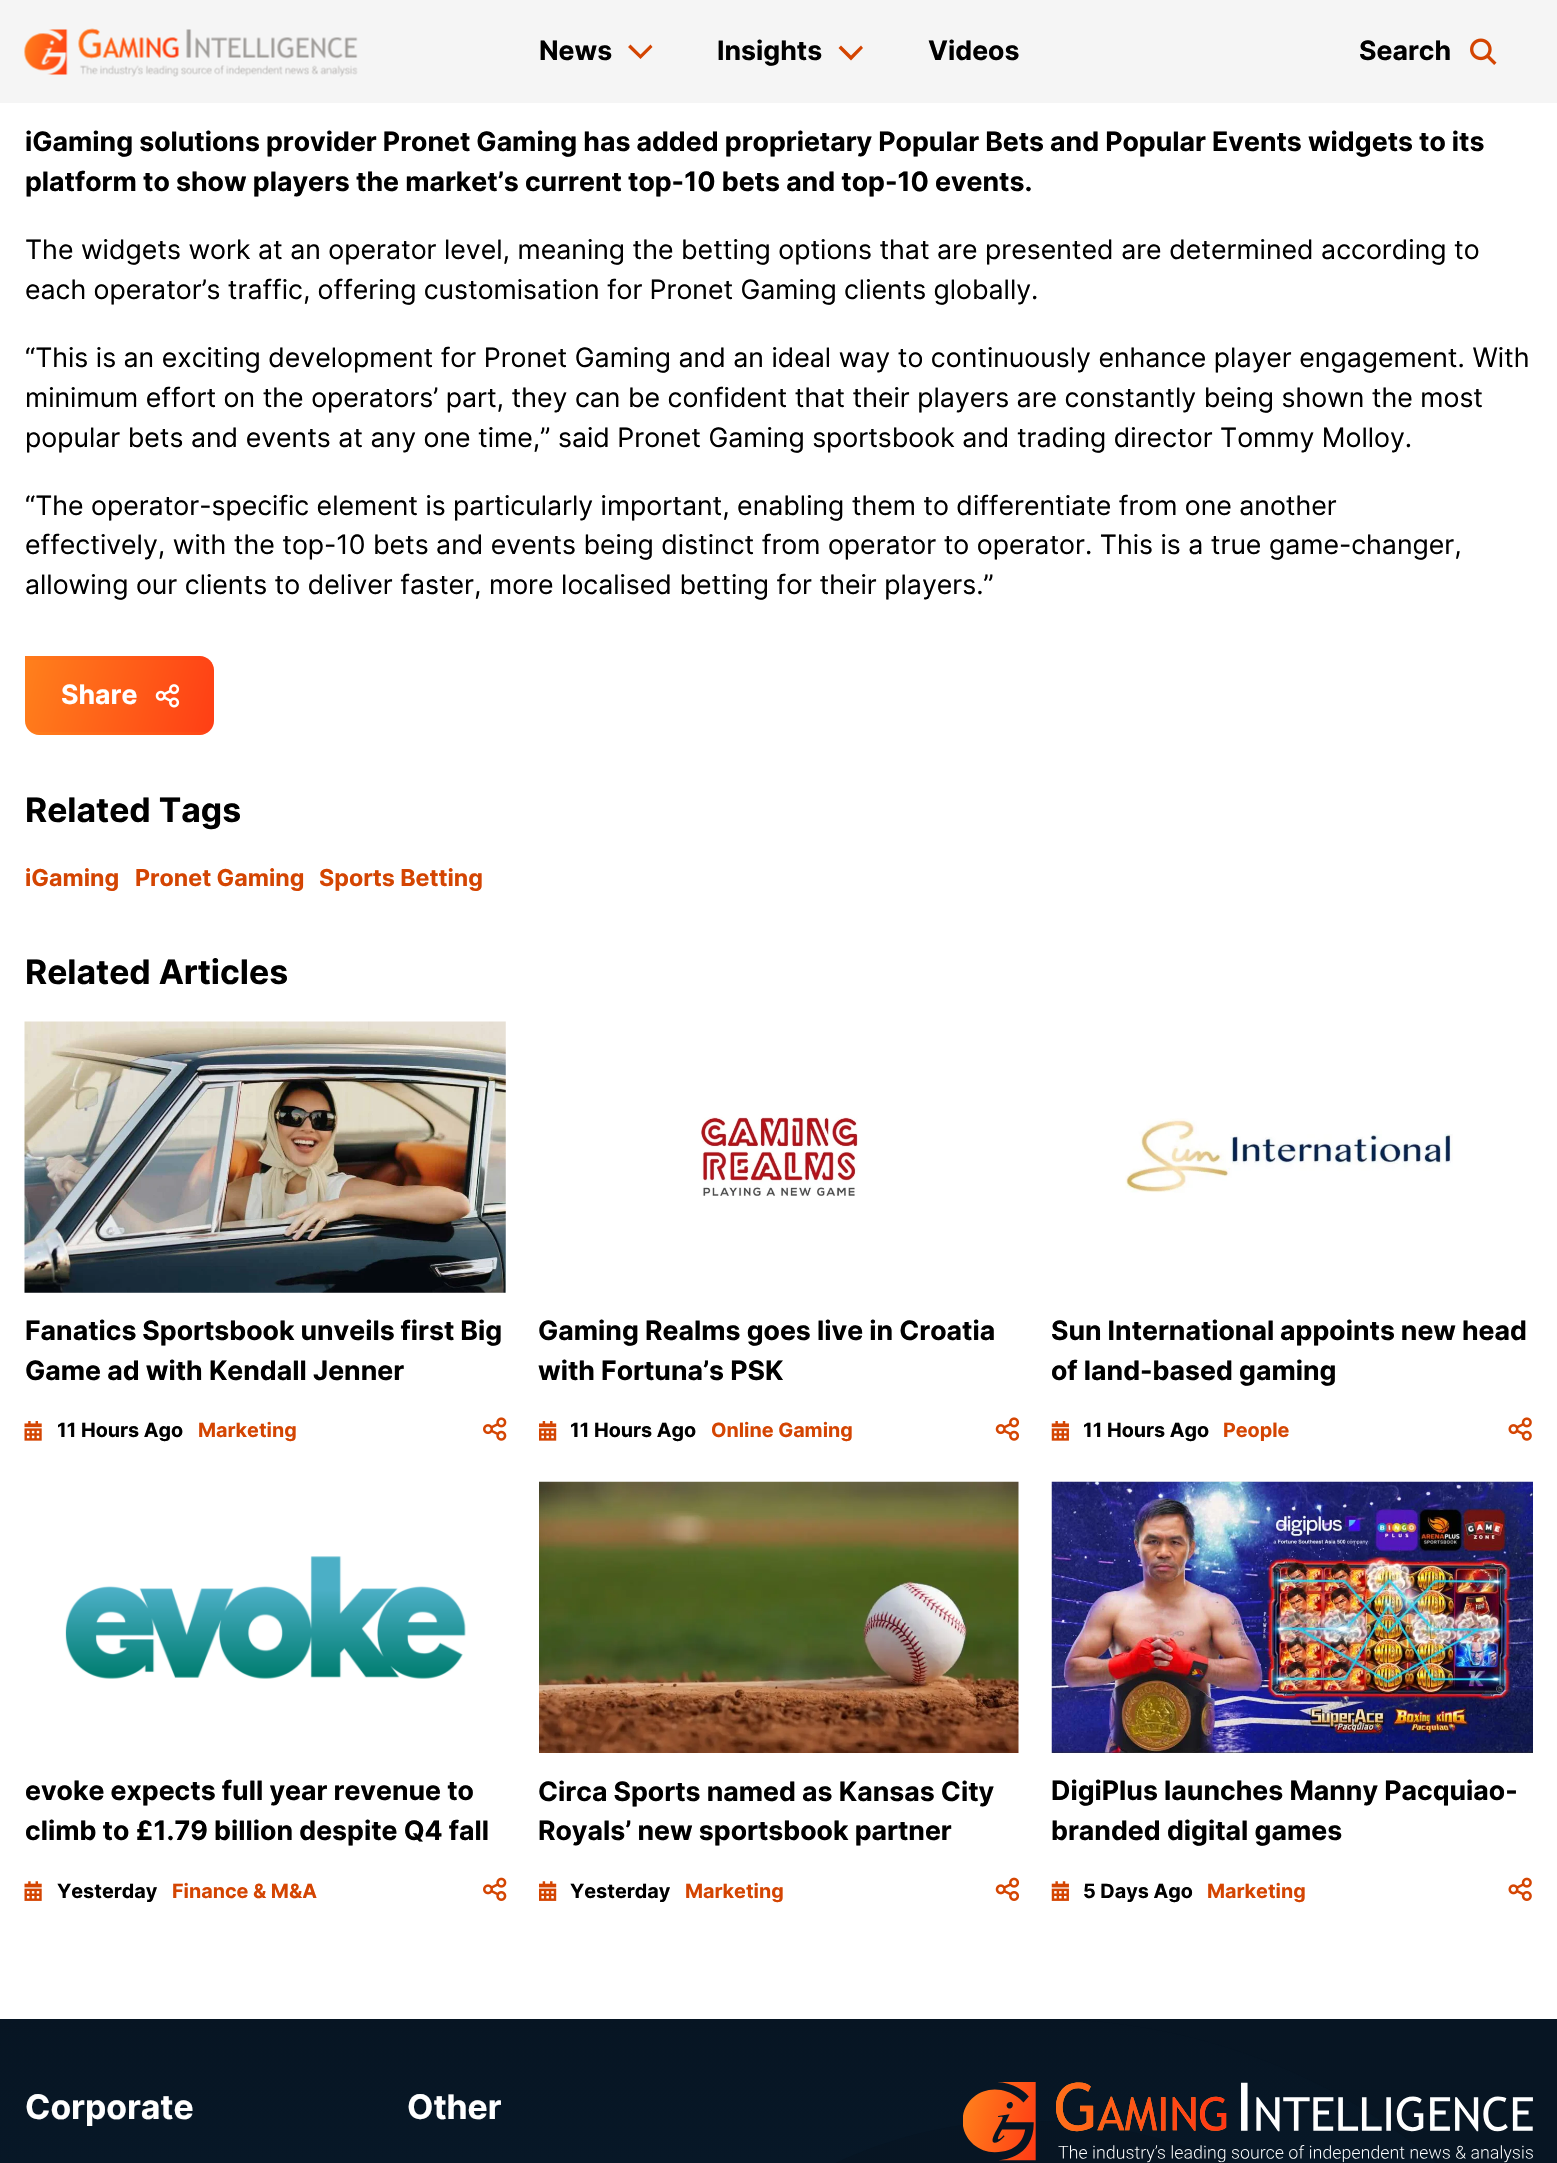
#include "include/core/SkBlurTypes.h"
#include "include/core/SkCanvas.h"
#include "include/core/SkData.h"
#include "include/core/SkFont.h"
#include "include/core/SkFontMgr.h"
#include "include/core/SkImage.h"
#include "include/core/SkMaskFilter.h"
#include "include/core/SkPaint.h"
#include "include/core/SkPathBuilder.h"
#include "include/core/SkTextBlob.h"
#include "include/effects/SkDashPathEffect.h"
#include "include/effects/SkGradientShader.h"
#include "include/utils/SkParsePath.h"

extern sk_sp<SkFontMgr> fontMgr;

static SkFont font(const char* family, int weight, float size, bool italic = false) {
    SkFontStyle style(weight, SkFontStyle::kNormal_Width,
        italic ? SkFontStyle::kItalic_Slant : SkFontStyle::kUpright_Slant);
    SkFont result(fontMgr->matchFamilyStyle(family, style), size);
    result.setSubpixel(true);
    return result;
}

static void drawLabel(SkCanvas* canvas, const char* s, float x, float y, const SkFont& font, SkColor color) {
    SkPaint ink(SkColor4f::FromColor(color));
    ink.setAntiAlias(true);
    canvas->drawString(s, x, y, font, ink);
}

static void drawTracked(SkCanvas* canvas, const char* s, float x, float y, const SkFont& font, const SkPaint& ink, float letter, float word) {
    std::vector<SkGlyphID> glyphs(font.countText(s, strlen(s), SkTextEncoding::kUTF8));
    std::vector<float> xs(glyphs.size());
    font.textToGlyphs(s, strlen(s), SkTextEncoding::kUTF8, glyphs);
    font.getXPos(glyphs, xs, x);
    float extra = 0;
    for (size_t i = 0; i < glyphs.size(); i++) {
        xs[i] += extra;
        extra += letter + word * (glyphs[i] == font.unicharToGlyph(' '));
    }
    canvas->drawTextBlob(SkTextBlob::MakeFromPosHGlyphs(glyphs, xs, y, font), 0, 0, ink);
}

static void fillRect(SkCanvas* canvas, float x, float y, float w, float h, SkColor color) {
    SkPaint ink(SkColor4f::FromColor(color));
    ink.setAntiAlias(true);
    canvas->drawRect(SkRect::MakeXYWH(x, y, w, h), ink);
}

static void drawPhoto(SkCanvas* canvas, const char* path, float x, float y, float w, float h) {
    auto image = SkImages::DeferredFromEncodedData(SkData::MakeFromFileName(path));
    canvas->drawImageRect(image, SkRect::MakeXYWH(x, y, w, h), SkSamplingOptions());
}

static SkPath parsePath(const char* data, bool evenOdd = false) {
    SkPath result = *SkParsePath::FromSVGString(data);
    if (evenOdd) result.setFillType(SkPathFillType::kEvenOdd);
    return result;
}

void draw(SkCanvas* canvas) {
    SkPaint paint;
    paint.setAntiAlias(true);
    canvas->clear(0xFFFFFFFF);
    fillRect(canvas, 0, 0, 1557, 103, 0xFFF5F5F5);
    drawPhoto(canvas, "assets/img1.png", 24, 28, 334, 49);
    SkFont font1 = font("Inter", 700, 26.67f, true);
    drawLabel(canvas, "News", 539, 60, font1, 0xFF000000);
    paint.setColor(0xFFD44502);
    canvas->drawPath(parsePath("M640.5 59L628 47L630.5 44.5L640.5 54.5L650.5 44.5L652.5 47Z"), paint);
    drawLabel(canvas, "Insights", 717, 60, font1, 0xFF000000);
    canvas->drawPath(parsePath("M851 60.5L838.5 48L841 45.5L851 55.5L861 45.5L863 48Z"), paint);
    drawLabel(canvas, "Videos", 928, 60, font1, 0xFF000000);
    drawLabel(canvas, "Search", 1359, 60, font1, 0xFF000000);
    drawPhoto(canvas, "assets/img2.png", 1470, 38, 27, 27);
    paint.setColor(0xFF000000);
    drawTracked(canvas, "iGaming solutions provider Pronet Gaming has added proprietary Popular Bets and Popular Events widgets to its", 25, 151, font1, paint, 0, -0.1f);
    drawLabel(canvas, "platform to show players the market’s current top-10 bets and top-10 events.", 25, 191, font1, 0xFF000000);
    SkFont font2 = font("Inter", 400, 26.67f, true);
    drawLabel(canvas, "The widgets work at an operator level, meaning the betting options that are presented are determined according to", 25, 259, font2, 0xFF000000);
    drawTracked(canvas, "each operator’s traffic, offering customisation for Pronet Gaming clients globally.", 25, 299, font2, paint, 0, -0.25f);
    drawLabel(canvas, "“This is an exciting development for Pronet Gaming and an ideal way to continuously enhance player engagement. With", 25, 367, font2, 0xFF000000);
    drawLabel(canvas, "minimum effort on the operators’ part, they can be confident that their players are constantly being shown the most", 25, 407, font2, 0xFF000000);
    drawLabel(canvas, "popular bets and events at any one time,” said Pronet Gaming sportsbook and trading director Tommy Molloy.", 25, 447, font2, 0xFF000000);
    drawTracked(canvas, "“The operator-specific element is particularly important, enabling them to differentiate from one another", 25, 515, font2, paint, 0, -0.1f);
    drawLabel(canvas, "effectively, with the top-10 bets and events being distinct from operator to operator. This is a true game-changer,", 25, 554, font2, 0xFF000000);
    drawLabel(canvas, "allowing our clients to deliver faster, more localised betting for their players.”", 25, 594, font2, 0xFF000000);
    canvas->save();
    canvas->clipPath(parsePath("M25 656H200C207.5 656 214 662.5 214 670V721C214 728.5 207.5 735 200 735H39C31.5 735 25 728.5 25 721Z"), true);
    {
        const SkColor colors[] = {0xFFFF891D, 0xFFFF3714};
        const float stops[] = {0, 1};
        const SkPoint ends[] = {{-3.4f, 591}, {238, 656}};
        paint.setShader(SkGradientShader::MakeLinear(ends, colors, stops, 2, SkTileMode::kClamp));
        paint.setAlpha(255);
    }
    canvas->drawRect(SkRect::MakeXYWH(25, 656, 189, 4), paint);
    {
        const SkColor colors[] = {0xFFFF891D, 0xFFFF3714};
        const float stops[] = {0, 1};
        const SkPoint ends[] = {{-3.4f, 663}, {238, 727}};
        paint.setShader(SkGradientShader::MakeLinear(ends, colors, stops, 2, SkTileMode::kClamp));
        paint.setAlpha(255);
    }
    canvas->drawRect(SkRect::MakeXYWH(25, 660, 189, 72), paint);
    {
        const SkColor colors[] = {0xFFFF891D, 0xFFFF3714};
        const float stops[] = {0, 1};
        const SkPoint ends[] = {{-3.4f, 735}, {238, 799}};
        paint.setShader(SkGradientShader::MakeLinear(ends, colors, stops, 2, SkTileMode::kClamp));
        paint.setAlpha(255);
    }
    canvas->drawRect(SkRect::MakeXYWH(25, 732, 189, 3), paint);
    canvas->restore();
    drawLabel(canvas, "Share", 61, 704, font1, 0xFFFFFFFF);
    drawPhoto(canvas, "assets/img3.png", 155, 684, 25, 24);
    SkFont font3 = font("Inter", 700, 33.75f, true);
    drawLabel(canvas, "Related Tags", 25, 822, font3, 0xFF000000);
    SkFont font4 = font("Inter", 700, 23.25f, true);
    drawLabel(canvas, "iGaming", 25, 886, font4, 0xFFD44502);
    drawLabel(canvas, "Pronet Gaming", 135, 886, font4, 0xFFD44502);
    drawLabel(canvas, "Sports Betting", 319, 886, font4, 0xFFD44502);
    drawLabel(canvas, "Related Articles", 25, 984, font3, 0xFF000000);
    drawPhoto(canvas, "assets/img4.png", 24, 1021, 482, 272);
    paint.setShader(nullptr);
    paint.setColor(0xFF000000);
    drawTracked(canvas, "Fanatics Sportsbook unveils first Big", 25, 1340, font1, paint, 0, -0.25f);
    drawLabel(canvas, "Game ad with Kendall Jenner", 25, 1380, font1, 0xFF000000);
    drawPhoto(canvas, "assets/img5.png", 24, 1421, 18, 20);
    SkFont font5 = font("Inter", 700, 19.75f, true);
    drawLabel(canvas, "11 Hours Ago", 57, 1437, font5, 0xFF000000);
    drawLabel(canvas, "Marketing", 198, 1437, font5, 0xFFD44502);
    drawPhoto(canvas, "assets/img6.png", 483, 1417, 24, 24);
    drawPhoto(canvas, "assets/img7.png", 700, 1117, 158, 79);
    drawLabel(canvas, "Gaming Realms goes live in Croatia", 538, 1340, font1, 0xFF000000);
    drawLabel(canvas, "with Fortuna’s PSK", 538, 1380, font1, 0xFF000000);
    drawPhoto(canvas, "assets/img8.png", 539, 1421, 18, 20);
    drawLabel(canvas, "11 Hours Ago", 570, 1437, font5, 0xFF000000);
    drawLabel(canvas, "Online Gaming", 711, 1437, font5, 0xFFD44502);
    drawPhoto(canvas, "assets/img9.png", 995, 1417, 25, 24);
    drawPhoto(canvas, "assets/img10.png", 1125, 1118, 328, 75);
    drawTracked(canvas, "Sun International appoints new head", 1051, 1340, font1, paint, 0, -0.25f);
    drawLabel(canvas, "of land-based gaming", 1051, 1380, font1, 0xFF000000);
    drawPhoto(canvas, "assets/img11.png", 1051, 1421, 18, 20);
    drawLabel(canvas, "11 Hours Ago", 1083, 1437, font5, 0xFF000000);
    drawLabel(canvas, "People", 1223, 1437, font5, 0xFFD44502);
    drawPhoto(canvas, "assets/img12.png", 1508, 1417, 24, 24);
    drawPhoto(canvas, "assets/img13.png", 65, 1556, 401, 123);
    drawLabel(canvas, "evoke expects full year revenue to", 25, 1800, font1, 0xFF000000);
    drawLabel(canvas, "climb to £1.79 billion despite Q4 fall", 25, 1840, font1, 0xFF000000);
    drawPhoto(canvas, "assets/img14.png", 24, 1881, 18, 20);
    drawLabel(canvas, "Yesterday", 57, 1898, font5, 0xFF000000);
    drawLabel(canvas, "Finance & M&A", 172, 1898, font5, 0xFFD44502);
    drawPhoto(canvas, "assets/img15.png", 483, 1877, 24, 24);
    drawPhoto(canvas, "assets/img16.png", 539, 1481, 480, 272);
    drawLabel(canvas, "Circa Sports named as Kansas City", 538, 1801, font1, 0xFF000000);
    drawLabel(canvas, "Royals’ new sportsbook partner", 538, 1840, font1, 0xFF000000);
    drawPhoto(canvas, "assets/img17.png", 539, 1881, 18, 20);
    drawLabel(canvas, "Yesterday", 570, 1898, font5, 0xFF000000);
    drawLabel(canvas, "Marketing", 685, 1898, font5, 0xFFD44502);
    drawPhoto(canvas, "assets/img18.png", 995, 1877, 25, 24);
    drawPhoto(canvas, "assets/img19.png", 1051, 1481, 482, 272);
    drawLabel(canvas, "DigiPlus launches Manny Pacquiao-", 1051, 1800, font1, 0xFF000000);
    drawLabel(canvas, "branded digital games", 1051, 1840, font1, 0xFF000000);
    drawPhoto(canvas, "assets/img20.png", 1051, 1881, 18, 20);
    drawLabel(canvas, "5 Days Ago", 1083, 1898, font5, 0xFF000000);
    drawLabel(canvas, "Marketing", 1207, 1898, font5, 0xFFD44502);
    drawPhoto(canvas, "assets/img21.png", 1508, 1877, 24, 24);
    drawPhoto(canvas, "assets/img22.png", 0, 2019, 1557, 144);
    drawLabel(canvas, "Corporate", 25, 2119, font3, 0xFFFFFFFF);
    drawLabel(canvas, "Other", 407, 2119, font3, 0xFFFFFFFF);
    drawPhoto(canvas, "assets/img23.png", 963, 2082, 570, 81);
}
